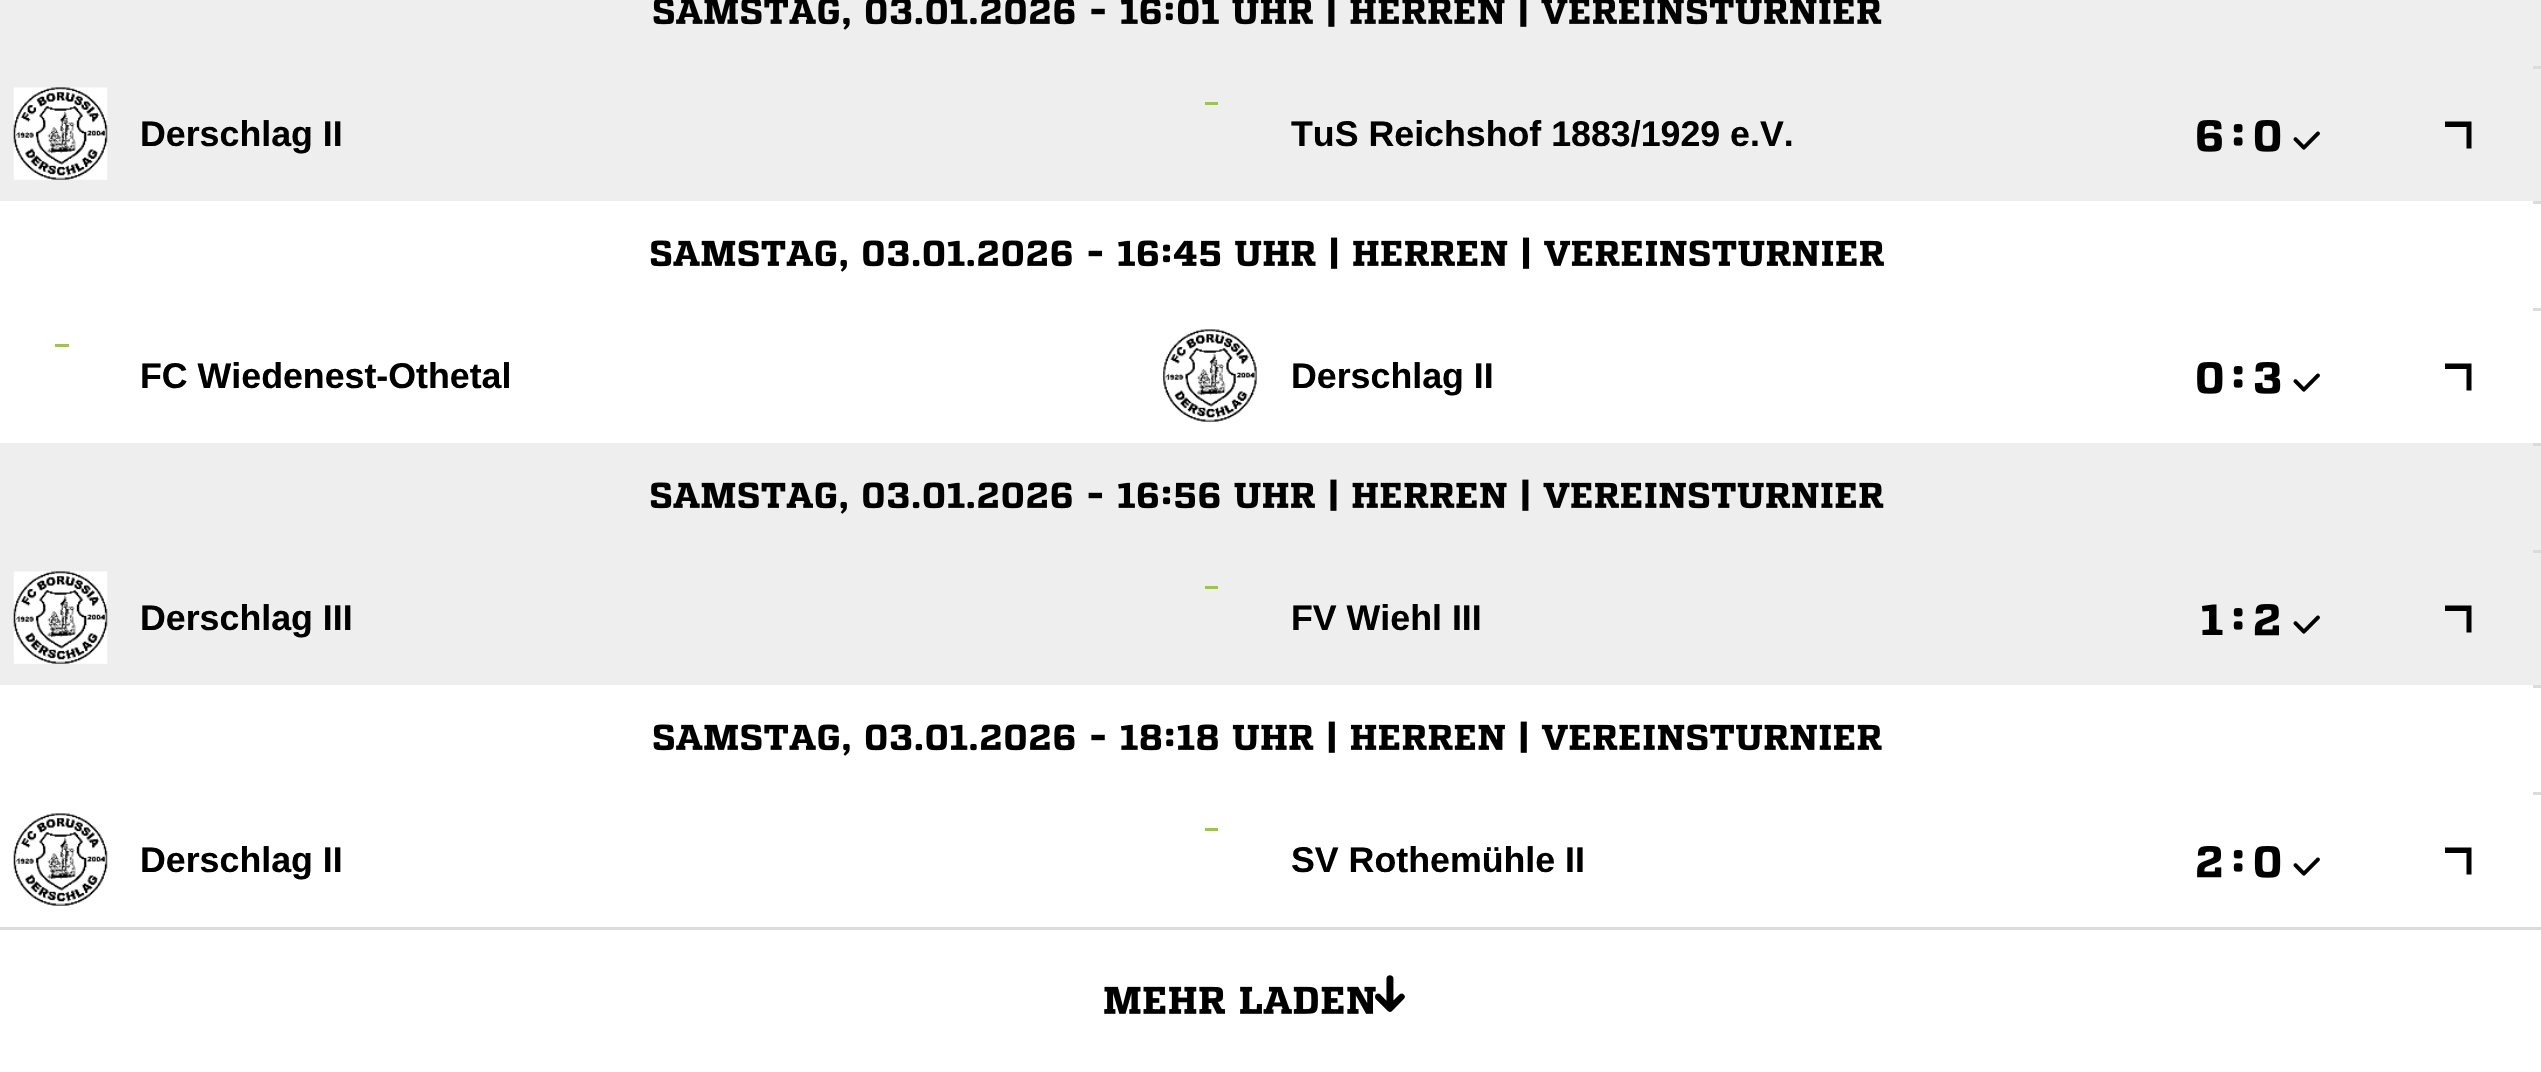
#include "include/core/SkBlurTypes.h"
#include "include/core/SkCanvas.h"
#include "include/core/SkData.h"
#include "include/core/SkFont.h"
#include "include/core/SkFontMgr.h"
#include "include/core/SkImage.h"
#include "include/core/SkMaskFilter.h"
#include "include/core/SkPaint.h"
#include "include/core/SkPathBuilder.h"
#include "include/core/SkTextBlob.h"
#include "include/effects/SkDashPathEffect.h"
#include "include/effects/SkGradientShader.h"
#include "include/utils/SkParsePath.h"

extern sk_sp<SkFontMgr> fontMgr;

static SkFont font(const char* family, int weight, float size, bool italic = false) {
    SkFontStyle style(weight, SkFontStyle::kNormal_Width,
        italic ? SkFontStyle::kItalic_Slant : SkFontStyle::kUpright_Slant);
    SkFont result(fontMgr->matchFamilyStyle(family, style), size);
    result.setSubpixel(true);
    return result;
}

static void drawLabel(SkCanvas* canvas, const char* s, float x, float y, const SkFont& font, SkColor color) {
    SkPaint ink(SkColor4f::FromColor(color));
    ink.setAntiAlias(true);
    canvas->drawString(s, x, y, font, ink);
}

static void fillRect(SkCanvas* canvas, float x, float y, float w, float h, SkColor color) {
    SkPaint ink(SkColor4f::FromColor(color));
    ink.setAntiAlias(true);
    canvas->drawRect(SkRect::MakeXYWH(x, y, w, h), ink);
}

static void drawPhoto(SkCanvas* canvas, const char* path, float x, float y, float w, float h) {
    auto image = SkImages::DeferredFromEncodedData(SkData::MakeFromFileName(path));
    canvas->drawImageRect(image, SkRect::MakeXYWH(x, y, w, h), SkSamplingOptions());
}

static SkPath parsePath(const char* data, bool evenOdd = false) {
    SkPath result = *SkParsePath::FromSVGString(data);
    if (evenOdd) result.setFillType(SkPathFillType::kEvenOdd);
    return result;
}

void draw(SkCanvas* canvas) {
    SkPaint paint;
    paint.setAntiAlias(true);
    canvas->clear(0xFFFFFFFF);
    fillRect(canvas, 0, 0, 2533, 69, 0xFFEEEEEE);
    drawPhoto(canvas, "assets/img1.png", 653, 0, 1229, 30);
    fillRect(canvas, 2533, 0, 8, 66, 0xFFEEEEEE);
    fillRect(canvas, 2533, 66, 8, 3, 0xFFDBDBDB);
    fillRect(canvas, 0, 69, 2541, 132, 0xFFEEEEEE);
    drawPhoto(canvas, "assets/img2.png", 13, 87, 95, 93);
    SkFont font1 = font("Liberation Sans", 700, 35.75f);
    drawLabel(canvas, "Derschlag II", 140, 146, font1, 0xFF000000);
    fillRect(canvas, 1205, 102, 13, 3, 0xFF99CC33);
    drawLabel(canvas, "TuS Reichshof 1883/1929 e.V.", 1291, 146, font1, 0xFF000000);
    drawPhoto(canvas, "assets/img3.png", 2197, 120, 25, 32);
    drawPhoto(canvas, "assets/img4.png", 2233, 124, 10, 22);
    drawPhoto(canvas, "assets/img5.png", 2254, 120, 27, 32);
    drawPhoto(canvas, "assets/img6.png", 2293, 131, 27, 19);
    paint.setColor(0xFF000000);
    canvas->drawPath(parsePath("M2466.5 148.5V127H2445V121.5H2471.5V148.5Z"), paint);
    drawPhoto(canvas, "assets/img7.png", 650, 237, 1234, 35);
    fillRect(canvas, 2533, 201, 8, 3, 0xFFDBDBDB);
    fillRect(canvas, 2533, 308, 8, 3, 0xFFDBDBDB);
    fillRect(canvas, 55, 344, 14, 3, 0xFF99CC33);
    drawLabel(canvas, "FC Wiedenest-Othetal", 140, 388, font1, 0xFF000000);
    drawPhoto(canvas, "assets/img8.png", 1163, 329, 94, 93);
    drawLabel(canvas, "Derschlag II", 1291, 388, font1, 0xFF000000);
    drawPhoto(canvas, "assets/img9.png", 2197, 362, 26, 32);
    drawPhoto(canvas, "assets/img10.png", 2233, 366, 10, 22);
    drawPhoto(canvas, "assets/img11.png", 2254, 362, 27, 32);
    drawPhoto(canvas, "assets/img12.png", 2293, 373, 27, 19);
    canvas->drawPath(parsePath("M2466.5 390.5V369H2445V363.5H2471.5V390.5Z"), paint);
    fillRect(canvas, 0, 443, 2533, 110, 0xFFEEEEEE);
    drawPhoto(canvas, "assets/img13.png", 650, 479, 1234, 35);
    fillRect(canvas, 2533, 446, 8, 104, 0xFFEEEEEE);
    fillRect(canvas, 2533, 443, 8, 3, 0xFFDBDBDB);
    fillRect(canvas, 2533, 550, 8, 3, 0xFFDBDBDB);
    fillRect(canvas, 0, 553, 2541, 132, 0xFFEEEEEE);
    drawPhoto(canvas, "assets/img2.png", 13, 571, 95, 93);
    drawLabel(canvas, "Derschlag III", 140, 630, font1, 0xFF000000);
    fillRect(canvas, 1205, 586, 13, 3, 0xFF99CC33);
    drawLabel(canvas, "FV Wiehl III", 1291, 630, font1, 0xFF000000);
    canvas->drawPath(parsePath("M2222.5 635H2202.5V630L2209 629.5V611L2202.5 611.5L2202 606L2213 604.5H2216.5V629.5L2222.5 630Z"), paint);
    drawPhoto(canvas, "assets/img4.png", 2233, 608, 10, 22);
    drawPhoto(canvas, "assets/img14.png", 2254, 604, 25, 32);
    drawPhoto(canvas, "assets/img6.png", 2293, 615, 27, 19);
    canvas->drawPath(parsePath("M2466.5 632.5V611H2445V605.5H2471.5V632.5Z"), paint);
    drawPhoto(canvas, "assets/img15.png", 653, 721, 1229, 35);
    fillRect(canvas, 2533, 685, 8, 3, 0xFFDBDBDB);
    fillRect(canvas, 2533, 792, 8, 3, 0xFFDBDBDB);
    drawPhoto(canvas, "assets/img16.png", 13, 813, 95, 93);
    drawLabel(canvas, "Derschlag II", 140, 872, font1, 0xFF000000);
    fillRect(canvas, 1205, 828, 13, 3, 0xFF99CC33);
    drawLabel(canvas, "SV Rothemühle II", 1291, 872, font1, 0xFF000000);
    drawPhoto(canvas, "assets/img17.png", 2197, 846, 25, 32);
    drawPhoto(canvas, "assets/img10.png", 2233, 850, 10, 22);
    drawPhoto(canvas, "assets/img18.png", 2254, 846, 27, 32);
    drawPhoto(canvas, "assets/img12.png", 2293, 857, 27, 19);
    canvas->drawPath(parsePath("M2466.5 874.5V853H2445V847.5H2471.5V874.5Z"), paint);
    fillRect(canvas, 0, 927, 2541, 3, 0xFFDBDBDB);
    drawPhoto(canvas, "assets/img19.png", 1104, 986, 272, 28);
    drawPhoto(canvas, "assets/img20.png", 1375, 975, 30, 37);
}
